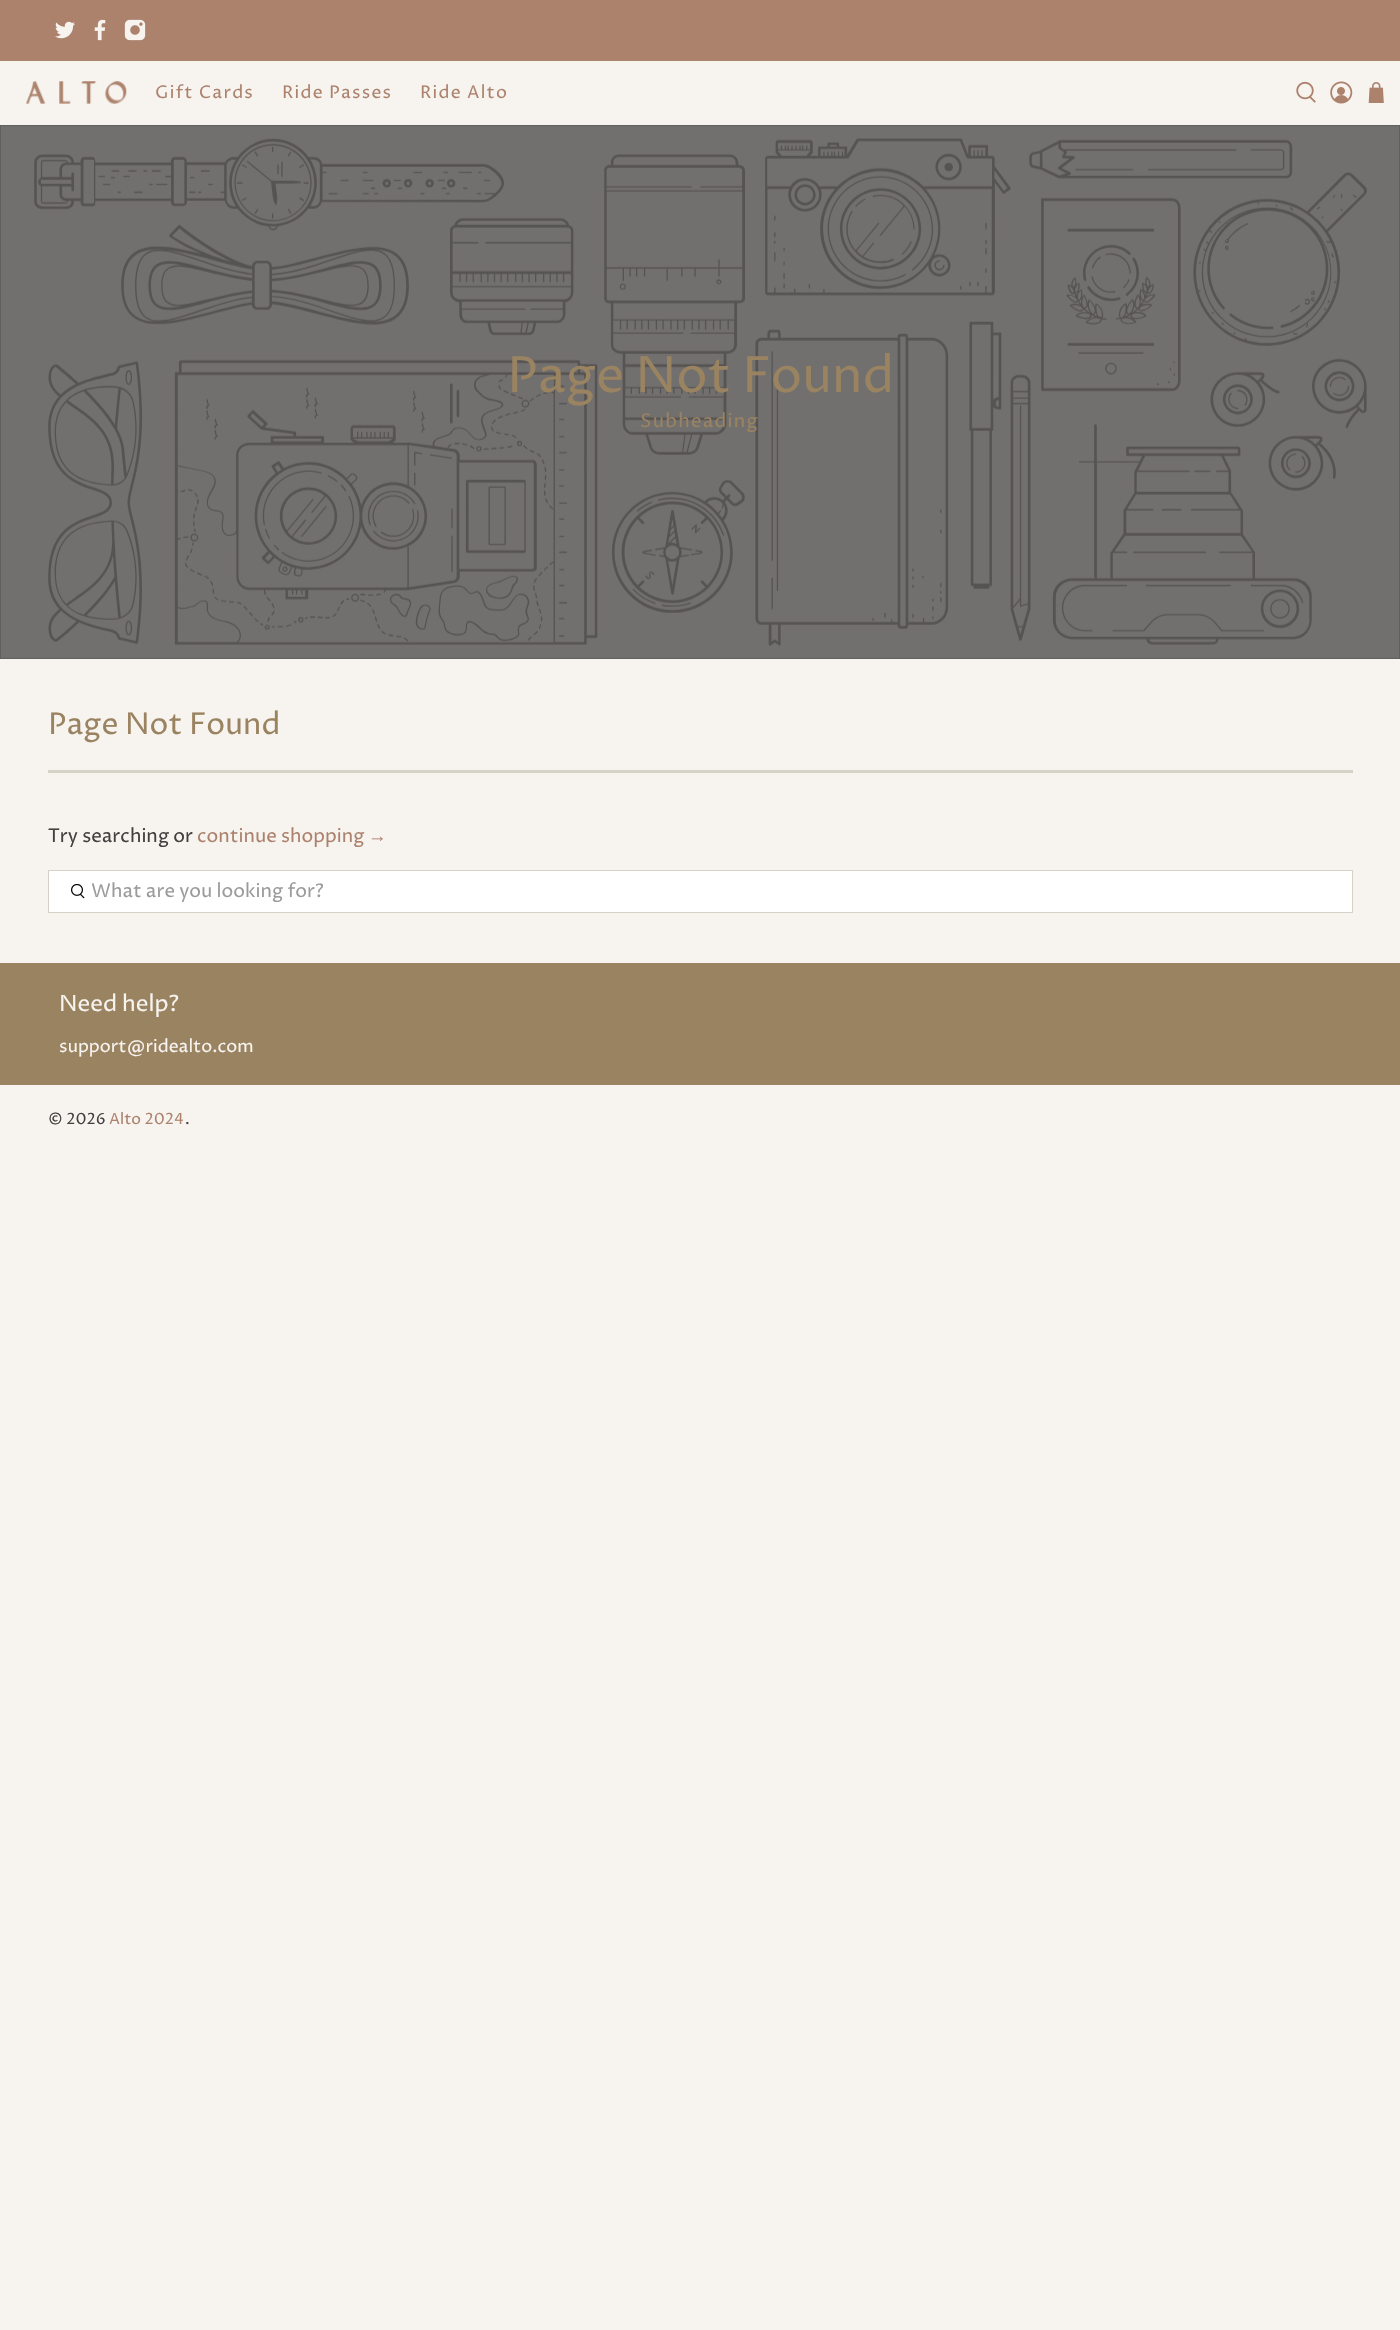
#include "include/core/SkBlurTypes.h"
#include "include/core/SkCanvas.h"
#include "include/core/SkData.h"
#include "include/core/SkFont.h"
#include "include/core/SkFontMgr.h"
#include "include/core/SkImage.h"
#include "include/core/SkMaskFilter.h"
#include "include/core/SkPaint.h"
#include "include/core/SkPathBuilder.h"
#include "include/core/SkTextBlob.h"
#include "include/effects/SkDashPathEffect.h"
#include "include/effects/SkGradientShader.h"
#include "include/utils/SkParsePath.h"

extern sk_sp<SkFontMgr> fontMgr;

static SkFont font(const char* family, int weight, float size, bool italic = false) {
    SkFontStyle style(weight, SkFontStyle::kNormal_Width,
        italic ? SkFontStyle::kItalic_Slant : SkFontStyle::kUpright_Slant);
    SkFont result(fontMgr->matchFamilyStyle(family, style), size);
    result.setSubpixel(true);
    return result;
}

static void drawLabel(SkCanvas* canvas, const char* s, float x, float y, const SkFont& font, SkColor color) {
    SkPaint ink(SkColor4f::FromColor(color));
    ink.setAntiAlias(true);
    canvas->drawString(s, x, y, font, ink);
}

static void drawTracked(SkCanvas* canvas, const char* s, float x, float y, const SkFont& font, const SkPaint& ink, float letter, float word) {
    std::vector<SkGlyphID> glyphs(font.countText(s, strlen(s), SkTextEncoding::kUTF8));
    std::vector<float> xs(glyphs.size());
    font.textToGlyphs(s, strlen(s), SkTextEncoding::kUTF8, glyphs);
    font.getXPos(glyphs, xs, x);
    float extra = 0;
    for (size_t i = 0; i < glyphs.size(); i++) {
        xs[i] += extra;
        extra += letter + word * (glyphs[i] == font.unicharToGlyph(' '));
    }
    canvas->drawTextBlob(SkTextBlob::MakeFromPosHGlyphs(glyphs, xs, y, font), 0, 0, ink);
}

static void fillRect(SkCanvas* canvas, float x, float y, float w, float h, SkColor color) {
    SkPaint ink(SkColor4f::FromColor(color));
    ink.setAntiAlias(true);
    canvas->drawRect(SkRect::MakeXYWH(x, y, w, h), ink);
}

static void drawPhoto(SkCanvas* canvas, const char* path, float x, float y, float w, float h) {
    auto image = SkImages::DeferredFromEncodedData(SkData::MakeFromFileName(path));
    canvas->drawImageRect(image, SkRect::MakeXYWH(x, y, w, h), SkSamplingOptions());
}

void draw(SkCanvas* canvas) {
    SkPaint paint;
    paint.setAntiAlias(true);
    canvas->clear(0xFFF7F3EF);
    fillRect(canvas, 0, 0, 1400, 61, 0xFFAC826D);
    drawPhoto(canvas, "assets/img1.png", 55, 21, 20, 18);
    drawPhoto(canvas, "assets/img2.png", 94, 19, 12, 22);
    drawPhoto(canvas, "assets/img3.png", 124, 19, 22, 22);
    drawPhoto(canvas, "assets/img4.png", 26, 81, 101, 23);
    SkFont font1 = font("Proza Libre", 400, 17.5f);
    paint.setColor(0xFFAC826D);
    drawTracked(canvas, "Gift Cards", 155, 98, font1, paint, 1.25f, 0);
    drawTracked(canvas, "Ride Passes", 282, 98, font1, paint, 1.25f, 0);
    drawTracked(canvas, "Ride Alto", 420, 98, font1, paint, 1.25f, 0);
    drawPhoto(canvas, "assets/img5.png", 1296, 81, 20, 22);
    drawPhoto(canvas, "assets/img6.png", 1330, 81, 23, 23);
    drawPhoto(canvas, "assets/img7.png", 1368, 82, 16, 21);
    paint.setColor(0xFF72706F);
    canvas->drawRect(SkRect::MakeXYWH(0.5f, 125.5f, 1399, 533), paint);
    paint.setStroke(true);
    paint.setStrokeWidth(1);
    paint.setColor(0xFF62605F);
    canvas->drawRect(SkRect::MakeXYWH(0.5f, 125.5f, 1399, 533), paint);
    drawPhoto(canvas, "assets/img8.png", 34, 138, 1333, 508);
    SkFont font2 = font("Proza Libre", 400, 50);
    drawLabel(canvas, "Page Not Found", 507, 392, font2, 0xFF9A8360);
    SkFont font3 = font("Proza Libre", 400, 18.75f);
    paint.setStroke(false);
    paint.setColor(0xFF9A8360);
    drawTracked(canvas, "Subheading", 640, 427, font3, paint, 1.25f, 0);
    SkFont font4 = font("Proza Libre", 400, 30);
    drawLabel(canvas, "Page Not Found", 48, 734, font4, 0xFF9A8360);
    fillRect(canvas, 48, 770, 1305, 3, 0xFFD7D2C7);
    drawLabel(canvas, "Try searching or", 48, 842, font3, 0xFF453F3F);
    drawLabel(canvas, "continue shopping", 197, 842, font3, 0xFFAC826D);
    SkFont font5 = font("Liberation Sans", 400, 18.75f);
    drawLabel(canvas, "→", 368, 842, font5, 0xFFAC826D);
    paint.setColor(0xFFFFFFFF);
    canvas->drawRect(SkRect::MakeXYWH(48.5f, 870.5f, 1304, 42), paint);
    paint.setStroke(true);
    paint.setColor(0xFFD7D2C7);
    canvas->drawRect(SkRect::MakeXYWH(48.5f, 870.5f, 1304, 42), paint);
    drawPhoto(canvas, "assets/img9.png", 71, 884, 14, 15);
    drawLabel(canvas, "What are you looking for?", 91, 897, font3, 0xFF9B9B9B);
    fillRect(canvas, 0, 963, 1400, 122, 0xFF9A8360);
    SkFont font6 = font("Proza Libre", 400, 22.5f);
    drawLabel(canvas, "Need help?", 59, 1011, font6, 0xFFF7F3EF);
    drawLabel(canvas, "support@ridealto.com", 59, 1052, font1, 0xFFF7F3EF);
    SkFont font7 = font("Proza Libre", 400, 15.5f);
    drawLabel(canvas, "© 2026", 48, 1124, font7, 0xFF453F3F);
    drawLabel(canvas, "Alto 2024", 109, 1124, font7, 0xFFAC826D);
    drawLabel(canvas, ".", 185, 1124, font7, 0xFF453F3F);
}
